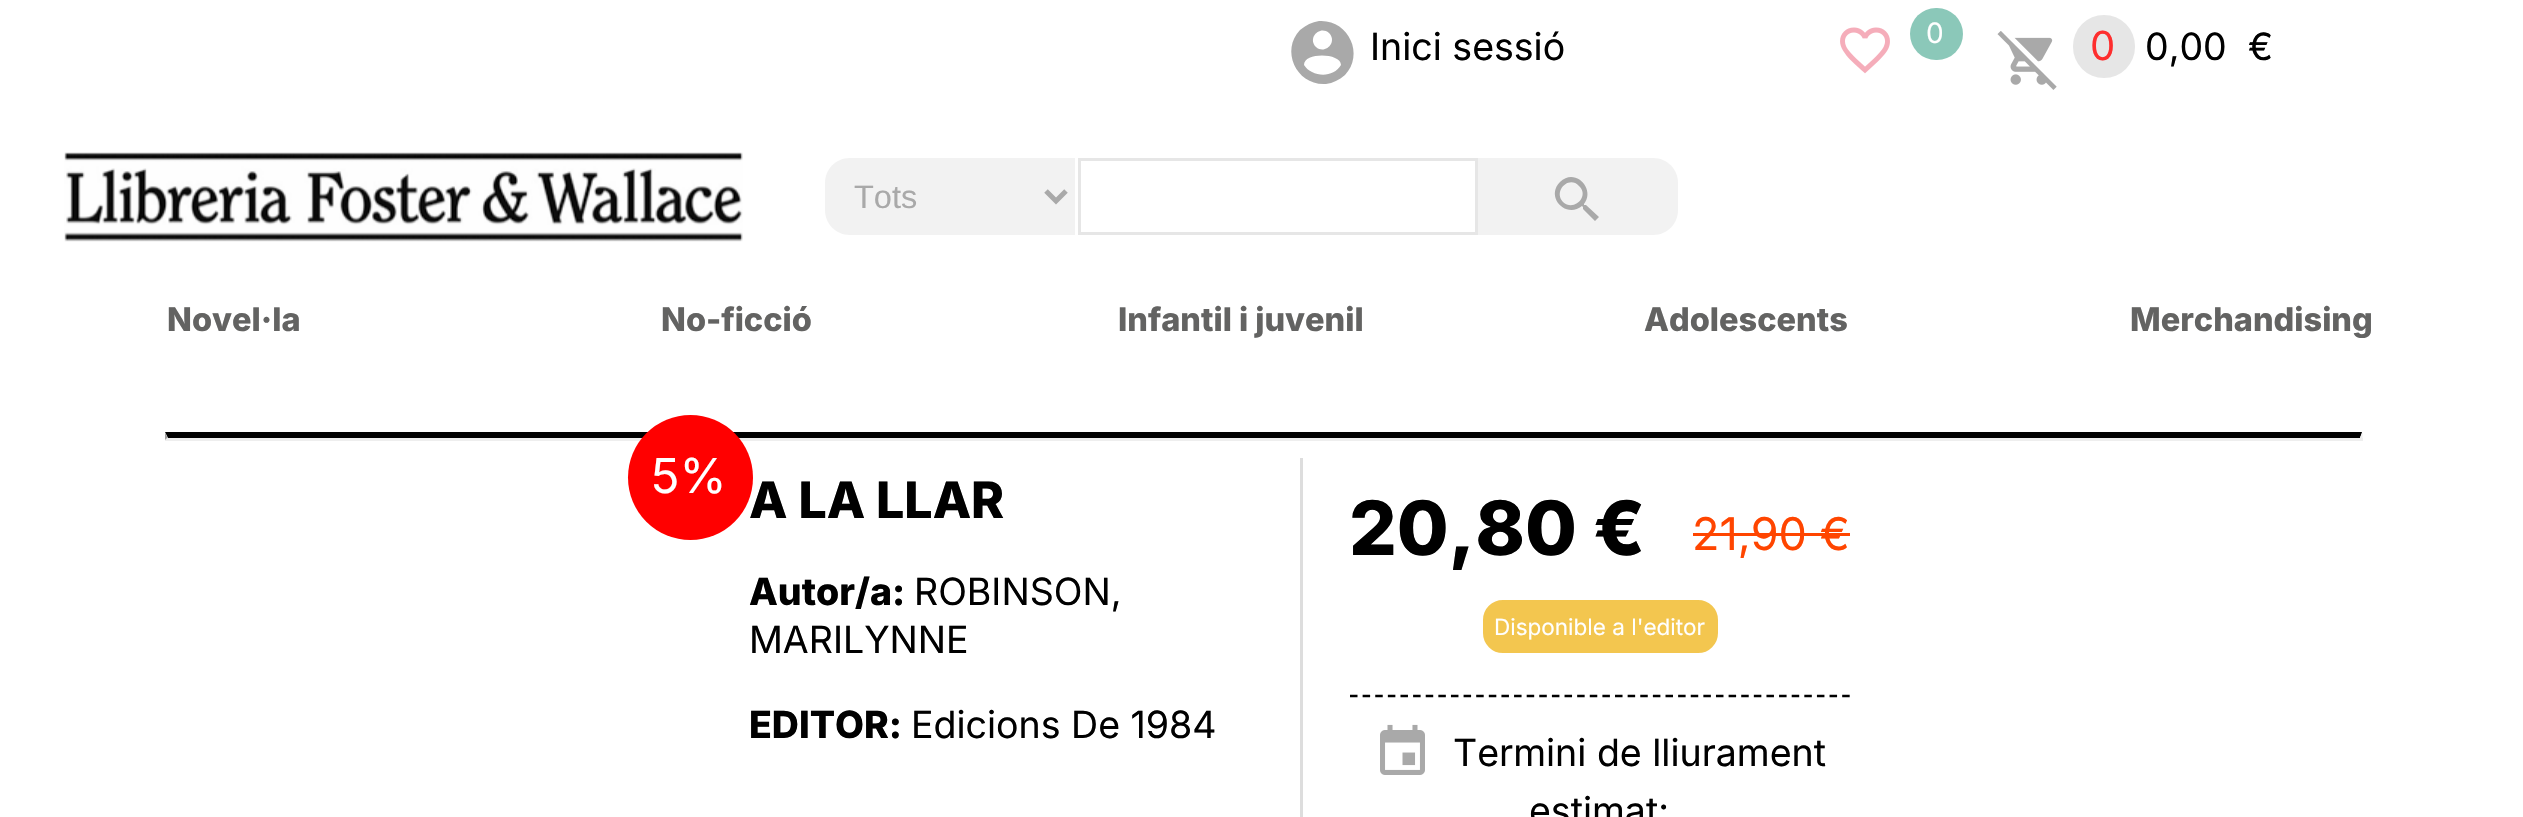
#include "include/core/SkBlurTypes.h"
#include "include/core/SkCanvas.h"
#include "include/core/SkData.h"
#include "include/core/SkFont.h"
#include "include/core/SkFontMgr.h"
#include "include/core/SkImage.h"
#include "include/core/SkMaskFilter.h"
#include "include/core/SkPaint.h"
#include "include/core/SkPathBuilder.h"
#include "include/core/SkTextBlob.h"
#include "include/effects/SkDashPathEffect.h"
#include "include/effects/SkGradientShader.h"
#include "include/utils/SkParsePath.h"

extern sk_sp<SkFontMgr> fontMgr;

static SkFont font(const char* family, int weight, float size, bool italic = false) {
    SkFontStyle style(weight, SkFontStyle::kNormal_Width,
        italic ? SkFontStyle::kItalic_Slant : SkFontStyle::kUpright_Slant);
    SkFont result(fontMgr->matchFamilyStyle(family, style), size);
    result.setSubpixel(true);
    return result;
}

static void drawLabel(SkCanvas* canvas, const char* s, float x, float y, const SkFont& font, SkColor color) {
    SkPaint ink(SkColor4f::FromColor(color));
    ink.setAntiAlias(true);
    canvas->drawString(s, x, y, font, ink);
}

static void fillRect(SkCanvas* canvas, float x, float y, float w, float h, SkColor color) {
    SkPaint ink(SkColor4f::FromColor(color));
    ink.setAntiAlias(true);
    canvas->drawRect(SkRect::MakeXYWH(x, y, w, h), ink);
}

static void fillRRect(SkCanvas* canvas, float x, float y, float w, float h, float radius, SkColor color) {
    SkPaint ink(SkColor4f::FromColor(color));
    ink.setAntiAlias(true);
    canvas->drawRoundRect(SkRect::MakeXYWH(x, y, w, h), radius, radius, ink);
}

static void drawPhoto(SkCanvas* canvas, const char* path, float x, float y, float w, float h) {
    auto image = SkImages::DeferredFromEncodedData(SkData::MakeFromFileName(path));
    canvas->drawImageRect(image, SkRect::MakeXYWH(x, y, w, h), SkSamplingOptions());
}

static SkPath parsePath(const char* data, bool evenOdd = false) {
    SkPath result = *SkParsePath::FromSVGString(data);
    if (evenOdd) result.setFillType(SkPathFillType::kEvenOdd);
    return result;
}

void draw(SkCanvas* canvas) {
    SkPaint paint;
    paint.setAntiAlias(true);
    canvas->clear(0xFFFFFFFF);
    paint.setColor(0xFFA9A9A9);
    canvas->drawPath(parsePath("M1312 72C1322 77 1335 75 1341 65C1341 53 1304 52 1304 65C1306 68 1308 70 1312 72ZM1329 33C1320 25 1307 38 1316 47C1325 55 1338 42 1329 33ZM1300 30C1306 25 1312 22 1319 21C1348 19 1365 54 1345 75C1339 80 1333 83 1326 84C1297 86 1280 51 1300 30Z"), paint);
    SkFont font1 = font("Inter", 400, 37.5f);
    drawLabel(canvas, "Inici sessió", 1370, 60, font1, 0xFF000000);
    drawPhoto(canvas, "assets/img1.png", 1840, 27, 50, 47);
    fillRRect(canvas, 1910, 8, 53, 52, 26, 0xFF8BC8B9);
    SkFont font2 = font("Inter", 400, 28);
    drawLabel(canvas, "0", 1926, 43, font2, 0xFFFFFFFF);
    drawPhoto(canvas, "assets/img2.png", 1997, 31, 60, 59);
    fillRRect(canvas, 2073, 15, 62, 63, 31, 0xFFE6E6E6);
    SkFont font3 = font("Inter", 400, 40);
    drawLabel(canvas, "0", 2090, 60, font3, 0xFFFE2E2E);
    drawLabel(canvas, "0,00", 2145, 60, font1, 0xFF000000);
    drawLabel(canvas, "€", 2248, 60, font1, 0xFF000000);
    drawPhoto(canvas, "assets/img3.png", 64, 152, 679, 90);
    paint.setColor(0xFFF2F2F2);
    canvas->drawPath(parsePath("M850 158H1075V235H850C836 235 825 224 825 210V183C825 169 836 158 850 158Z"), paint);
    paint.setStroke(true);
    paint.setStrokeWidth(5);
    paint.setColor(0xFFA9A9A9);
    canvas->drawPath(parsePath("M1046 191L1056 201L1066 191"), paint);
    SkFont font4 = font("Liberation Sans", 400, 32.5f);
    drawLabel(canvas, "Tots", 854, 208, font4, 0xFFA9A9A9);
    paint.setStrokeWidth(3);
    paint.setColor(0xFFE6E6E6);
    canvas->drawRect(SkRect::MakeXYWH(1079.5f, 159.5f, 397, 74), paint);
    paint.setStroke(false);
    paint.setColor(0xFFF2F2F2);
    canvas->drawPath(parsePath("M1478 158H1653C1667 158 1678 169 1678 183V210C1678 224 1667 235 1653 235H1478Z"), paint);
    paint.setColor(0xFFA9A9A9);
    canvas->drawPath(parsePath("M1563 202C1574 212 1590 196 1579 186C1569 175 1553 191 1563 202ZM1586 205L1599 217L1595 221L1583 209V207L1582 206C1566 219 1545 197 1560 182C1575 167 1596 189 1584 204V205Z"), paint);
    SkFont font5 = font("Inter", 800, 32.5f);
    drawLabel(canvas, "Novel·la", 167, 331, font5, 0xFF636362);
    drawLabel(canvas, "No-ficció", 661, 331, font5, 0xFF636362);
    drawLabel(canvas, "Infantil i juvenil", 1118, 331, font5, 0xFF636362);
    drawLabel(canvas, "Adolescents", 1644, 331, font5, 0xFF636362);
    drawLabel(canvas, "Merchandising", 2130, 331, font5, 0xFF636362);
    paint.setColor(0xFF000000);
    canvas->drawPath(parsePath("M165 432H2362L2360 438H168Z"), paint);
    paint.setColor(0xFFEEEEEE);
    canvas->drawPath(parsePath("M2362.5 432.5V440L2360 437.5Z"), paint);
    fillRect(canvas, 165, 438, 2198, 3, 0xFFEEEEEE);
    paint.setColor(0xFF9F9F9F);
    canvas->drawPath(parsePath("M165 440V432.5L167.5 437.5Z"), paint);
    paint.setColor(0xFFFF0000);
    canvas->drawCircle(690.5f, 477.5f, 62.5f, paint);
    SkFont font6 = font("Inter", 400, 48);
    drawLabel(canvas, "5%", 651, 493, font6, 0xFFFFFFFF);
    fillRect(canvas, 1300, 458, 3, 359, 0xFFDDDDDD);
    SkFont font7 = font("Inter", 800, 50);
    drawLabel(canvas, "A LA LLAR", 749, 518, font7, 0xFF000000);
    SkFont font8 = font("Inter", 800, 75);
    drawLabel(canvas, "20,80 €", 1349, 555, font8, 0xFF000000);
    SkFont font9 = font("Inter", 400, 45);
    drawLabel(canvas, "21,90 €", 1692, 550, font9, 0xFFFF4500);
    fillRect(canvas, 1693, 533, 157, 3, 0xFFFF4500);
    paint.setColor(0xFFF3C64F);
    canvas->drawRoundRect(SkRect::MakeXYWH(1485.5f, 602.5f, 230, 48), 17.5f, 17.5f, paint);
    paint.setStroke(true);
    paint.setStrokeWidth(5);
    canvas->drawRoundRect(SkRect::MakeXYWH(1485.5f, 602.5f, 230, 48), 17.5f, 17.5f, paint);
    SkFont font10 = font("Inter", 400, 22.5f);
    drawLabel(canvas, "Disponible a l'editor", 1494, 635, font10, 0xFFFFFFFF);
    paint.setStrokeWidth(2.5f);
    paint.setColor(0xFF000000);
    paint.setPathEffect(SkDashPathEffect::Make({{7.5f, 5.12f}}, 0));
    canvas->drawPath(parsePath("M1350 696H1850"), paint);
    paint.setPathEffect(nullptr);
    drawPhoto(canvas, "assets/img4.png", 1380, 724, 45, 51);
    drawLabel(canvas, "Termini de lliurament", 1453, 766, font1, 0xFF000000);
    drawLabel(canvas, "estimat:", 1529, 824, font1, 0xFF000000);
    SkFont font11 = font("Inter", 800, 37.5f);
    drawLabel(canvas, "Autor/a:", 749, 605, font11, 0xFF000000);
    drawLabel(canvas, "ROBINSON,", 914, 605, font1, 0xFF000000);
    drawLabel(canvas, "MARILYNNE", 749, 653, font1, 0xFF000000);
    drawLabel(canvas, "EDITOR:", 749, 738, font11, 0xFF000000);
    drawLabel(canvas, "Edicions De 1984", 911, 738, font1, 0xFF000000);
}
